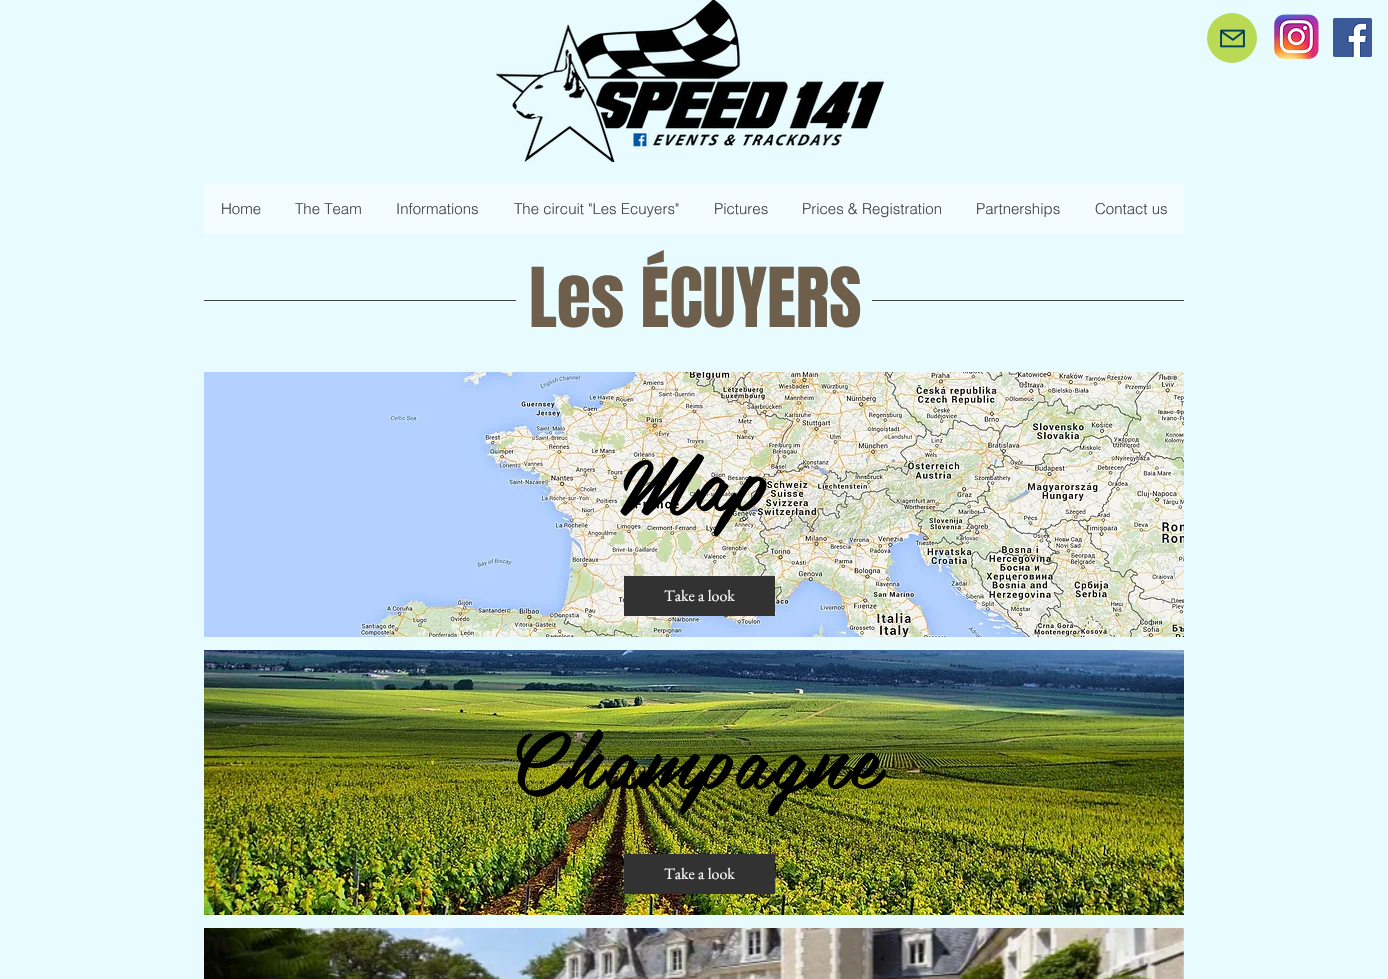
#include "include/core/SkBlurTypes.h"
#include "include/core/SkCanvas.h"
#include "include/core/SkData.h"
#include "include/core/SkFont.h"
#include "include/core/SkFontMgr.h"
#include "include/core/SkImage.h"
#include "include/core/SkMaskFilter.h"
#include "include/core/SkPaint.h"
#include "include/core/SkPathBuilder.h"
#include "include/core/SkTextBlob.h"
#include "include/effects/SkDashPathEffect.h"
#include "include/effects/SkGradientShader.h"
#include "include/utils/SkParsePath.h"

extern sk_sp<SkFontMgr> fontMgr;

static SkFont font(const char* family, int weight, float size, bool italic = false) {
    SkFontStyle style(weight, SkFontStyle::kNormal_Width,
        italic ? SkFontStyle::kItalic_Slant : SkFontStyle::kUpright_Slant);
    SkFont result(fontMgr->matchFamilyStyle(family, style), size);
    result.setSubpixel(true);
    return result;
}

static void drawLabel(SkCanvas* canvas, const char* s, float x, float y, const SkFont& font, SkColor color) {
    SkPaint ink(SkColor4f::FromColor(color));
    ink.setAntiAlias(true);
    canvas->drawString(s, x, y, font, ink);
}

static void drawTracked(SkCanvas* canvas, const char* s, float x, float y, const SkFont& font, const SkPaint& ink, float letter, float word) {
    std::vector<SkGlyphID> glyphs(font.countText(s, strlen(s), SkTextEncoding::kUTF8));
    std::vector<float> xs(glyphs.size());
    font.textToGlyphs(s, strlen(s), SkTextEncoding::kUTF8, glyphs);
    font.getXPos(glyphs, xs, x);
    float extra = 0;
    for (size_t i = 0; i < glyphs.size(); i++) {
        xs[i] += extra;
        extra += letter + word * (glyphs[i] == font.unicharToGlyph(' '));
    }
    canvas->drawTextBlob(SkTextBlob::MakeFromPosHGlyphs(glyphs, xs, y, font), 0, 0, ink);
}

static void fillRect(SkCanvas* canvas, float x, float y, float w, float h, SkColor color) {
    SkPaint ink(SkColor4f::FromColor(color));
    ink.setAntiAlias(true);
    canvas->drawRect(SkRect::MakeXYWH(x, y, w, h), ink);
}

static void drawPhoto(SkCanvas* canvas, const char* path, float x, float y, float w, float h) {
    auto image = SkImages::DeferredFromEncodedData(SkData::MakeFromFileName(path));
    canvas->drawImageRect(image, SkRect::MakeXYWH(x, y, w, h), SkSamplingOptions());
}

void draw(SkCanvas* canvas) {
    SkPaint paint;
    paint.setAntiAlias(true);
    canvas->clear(0xFFE8FCFF);
    drawPhoto(canvas, "assets/img1.png", 496, 0, 388, 162);
    paint.setColor(0xFFBADA55);
    canvas->drawCircle(1232, 38, 25, paint);
    drawPhoto(canvas, "assets/img2.png", 1220, 29, 25, 19);
    drawPhoto(canvas, "assets/img3.png", 1274, 14, 45, 45);
    drawPhoto(canvas, "assets/img4.png", 1333, 18, 39, 39);
    fillRect(canvas, 204, 184, 980, 50, 0xFFF3FDFF);
    SkFont font1 = font("helvetica", 300, 15);
    drawLabel(canvas, "Home", 221, 214, font1, 0xFF444444);
    drawLabel(canvas, "The Team", 295, 214, font1, 0xFF444444);
    drawLabel(canvas, "Informations", 396, 214, font1, 0xFF444444);
    drawLabel(canvas, "The circuit \"Les Ecuyers\"", 514, 214, font1, 0xFF444444);
    drawLabel(canvas, "Pictures", 714, 214, font1, 0xFF444444);
    drawLabel(canvas, "Prices & Registration", 802, 214, font1, 0xFF444444);
    drawLabel(canvas, "Partnerships", 976, 214, font1, 0xFF444444);
    drawLabel(canvas, "Contact us", 1095, 214, font1, 0xFF444444);
    fillRect(canvas, 204, 300, 312, 1, 0xFF424242);
    SkFont font2 = font("Anton", 400, 70);
    drawLabel(canvas, "Les ÉCUYERS", 529, 327, font2, 0xFF6E5F4C);
    fillRect(canvas, 872, 300, 312, 1, 0xFF424242);
    drawPhoto(canvas, "assets/img5.png", 204, 372, 980, 265);
    SkFont font3 = font("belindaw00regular", 400, 80);
    paint.setColor(0xFF000000);
    drawTracked(canvas, "Map", 619, 511, font3, paint, 4, 0);
    fillRect(canvas, 624, 576, 151, 40, 0xFF323232);
    SkFont font4 = font("EB Garamond", 400, 16);
    drawLabel(canvas, "Take a look", 664, 601, font4, 0xFFFFFFFF);
    drawPhoto(canvas, "assets/img6.png", 204, 650, 980, 265);
    drawTracked(canvas, "Champagne", 507, 789, font3, paint, 4, 0);
    fillRect(canvas, 624, 854, 151, 40, 0xFF323232);
    drawLabel(canvas, "Take a look", 664, 879, font4, 0xFFFFFFFF);
    drawPhoto(canvas, "assets/img7.png", 204, 928, 980, 51);
}
